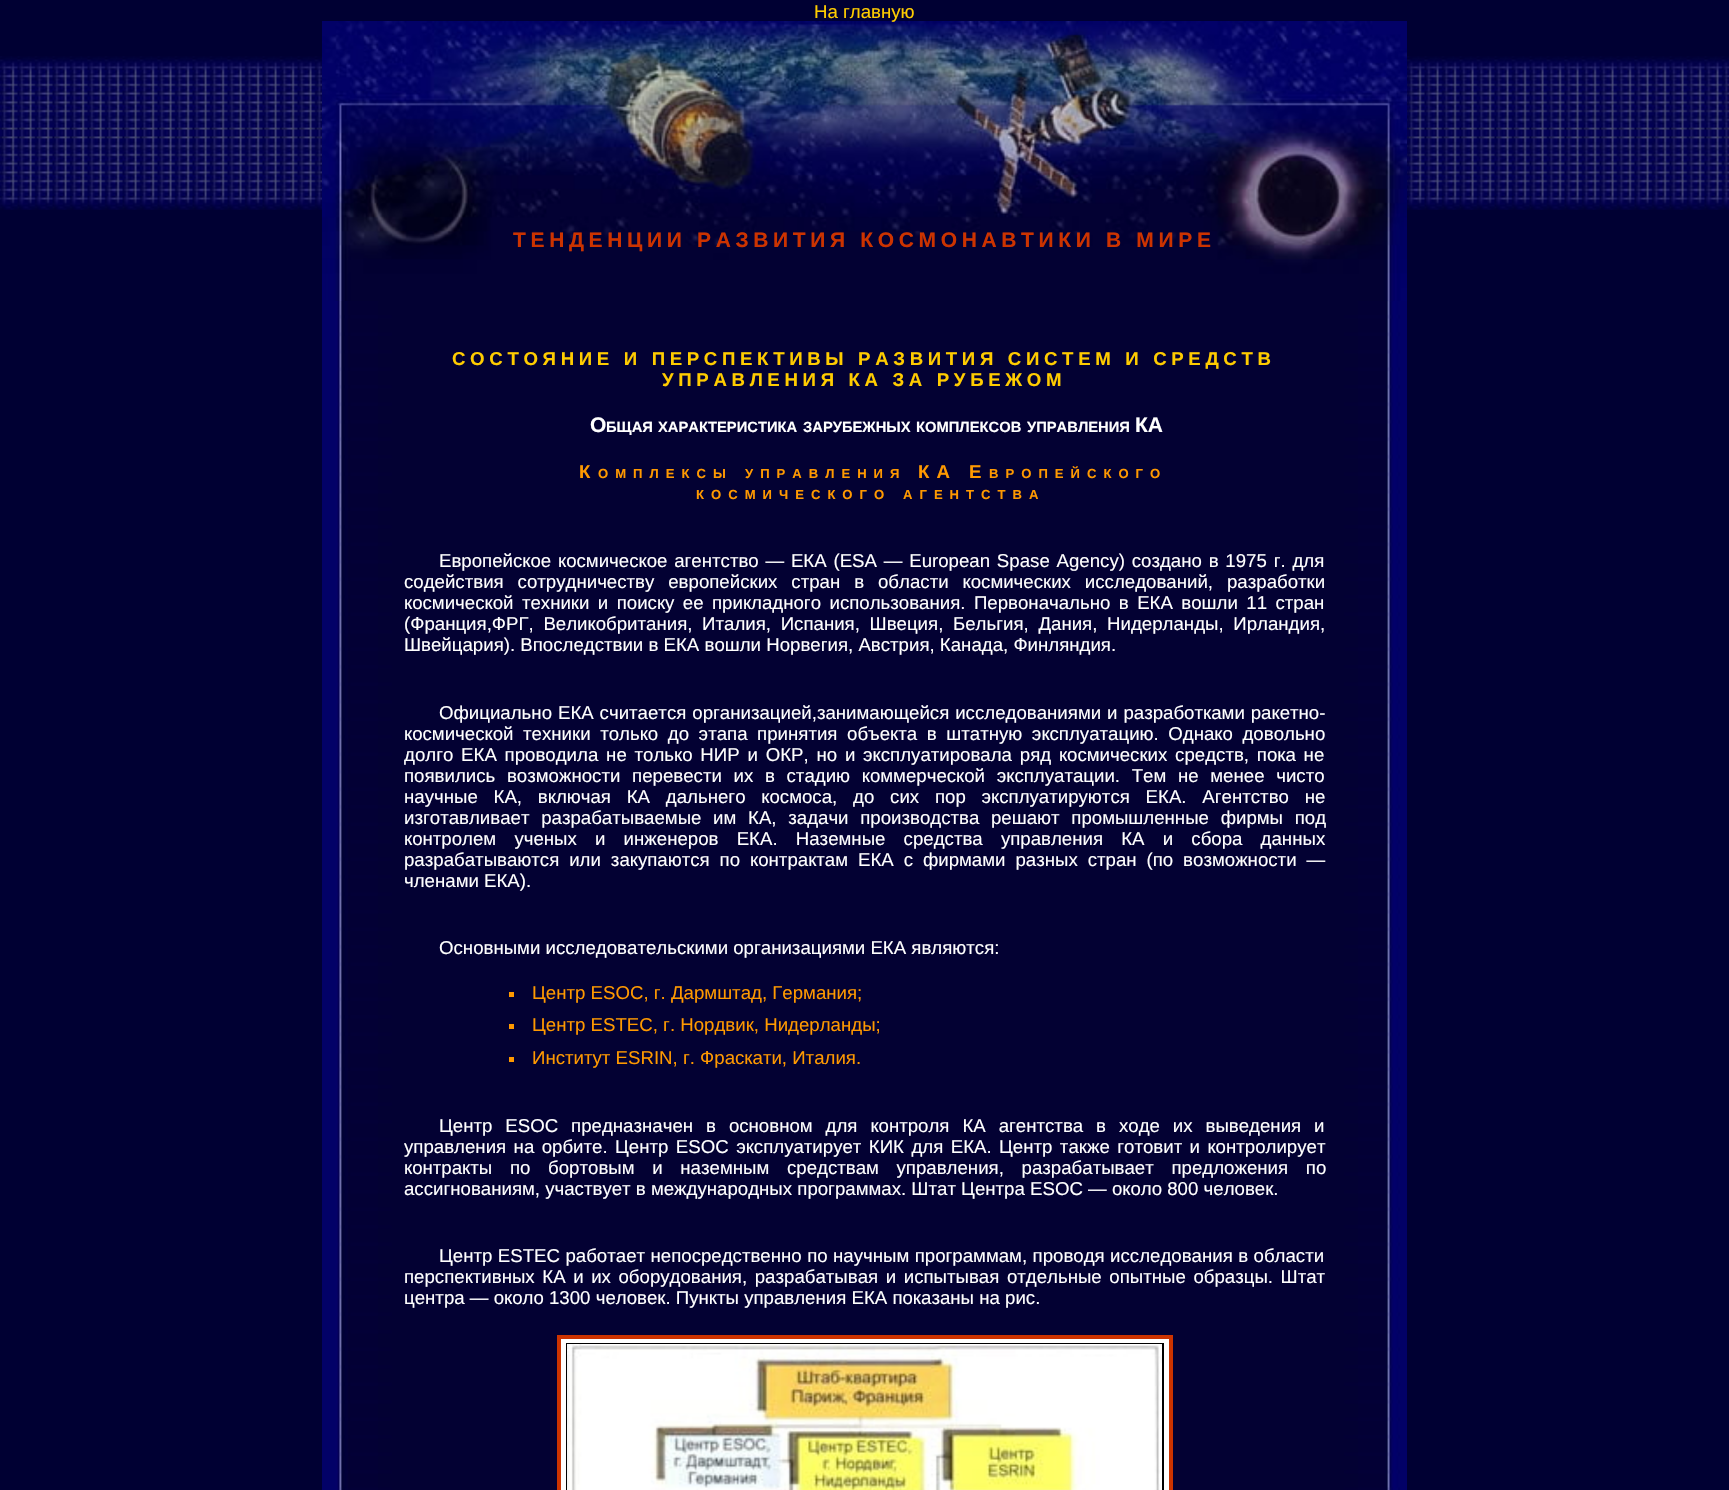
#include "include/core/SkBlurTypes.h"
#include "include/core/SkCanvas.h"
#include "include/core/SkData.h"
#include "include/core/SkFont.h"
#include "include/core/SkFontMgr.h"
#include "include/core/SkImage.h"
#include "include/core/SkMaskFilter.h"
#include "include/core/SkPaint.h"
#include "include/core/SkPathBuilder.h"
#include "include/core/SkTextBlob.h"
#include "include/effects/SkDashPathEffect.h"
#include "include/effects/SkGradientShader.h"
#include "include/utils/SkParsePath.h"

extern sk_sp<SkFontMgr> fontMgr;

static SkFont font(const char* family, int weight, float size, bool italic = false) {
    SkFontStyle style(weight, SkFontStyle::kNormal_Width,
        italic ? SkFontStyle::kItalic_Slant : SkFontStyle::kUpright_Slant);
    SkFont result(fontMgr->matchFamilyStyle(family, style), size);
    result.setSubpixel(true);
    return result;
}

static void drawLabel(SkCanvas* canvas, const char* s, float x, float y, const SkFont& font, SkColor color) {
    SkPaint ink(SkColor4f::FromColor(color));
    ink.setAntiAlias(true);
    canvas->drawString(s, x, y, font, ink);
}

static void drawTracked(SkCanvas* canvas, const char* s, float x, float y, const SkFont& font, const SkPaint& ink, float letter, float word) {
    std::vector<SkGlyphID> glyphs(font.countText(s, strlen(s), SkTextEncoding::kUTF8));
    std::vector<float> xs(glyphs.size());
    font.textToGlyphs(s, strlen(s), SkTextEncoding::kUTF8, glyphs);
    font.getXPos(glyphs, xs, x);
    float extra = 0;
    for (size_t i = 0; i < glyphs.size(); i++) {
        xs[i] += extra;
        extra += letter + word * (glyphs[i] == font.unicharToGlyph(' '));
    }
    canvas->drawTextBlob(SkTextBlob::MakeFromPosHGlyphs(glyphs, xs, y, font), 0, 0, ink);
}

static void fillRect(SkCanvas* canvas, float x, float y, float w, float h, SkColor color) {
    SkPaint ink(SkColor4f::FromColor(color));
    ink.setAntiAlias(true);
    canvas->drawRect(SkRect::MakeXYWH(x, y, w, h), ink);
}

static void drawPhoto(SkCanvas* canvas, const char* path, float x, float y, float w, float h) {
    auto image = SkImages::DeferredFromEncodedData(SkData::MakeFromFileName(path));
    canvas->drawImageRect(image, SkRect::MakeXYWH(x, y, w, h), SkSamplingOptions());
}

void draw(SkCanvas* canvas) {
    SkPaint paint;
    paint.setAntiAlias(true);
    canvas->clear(0xFF000033);
    drawPhoto(canvas, "assets/img1.png", 0, 56, 322, 154);
    drawPhoto(canvas, "assets/img2.png", 322, 21, 1085, 280);
    SkFont font1 = font("Liberation Sans", 400, 18.65f);
    drawLabel(canvas, "На главную", 814, 18, font1, 0xFFFFCC00);
    SkFont font2 = font("Liberation Sans", 700, 21);
    paint.setColor(0xFFCC3300);
    drawTracked(canvas, "ТЕНДЕНЦИИ РАЗВИТИЯ КОСМОНАВТИКИ В МИРЕ", 513, 247, font2, paint, 4.65f, 0);
    drawPhoto(canvas, "assets/img3.png", 1407, 56, 322, 154);
    drawPhoto(canvas, "assets/img4.png", 322, 301, 1085, 1189);
    SkFont font3 = font("Liberation Sans", 700, 18.65f);
    paint.setColor(0xFFFFCC00);
    drawTracked(canvas, "СОСТОЯНИЕ И ПЕРСПЕКТИВЫ РАЗВИТИЯ СИСТЕМ И СРЕДСТВ", 452, 365, font3, paint, 4.65f, 0);
    drawTracked(canvas, "УПРАВЛЕНИЯ КА ЗА РУБЕЖОМ", 662, 386, font3, paint, 4.65f, 0);
    drawLabel(canvas, "О", 590, 432, font2, 0xFFFFFFFF);
    SkFont font4 = font("Liberation Sans", 700, 14.75f);
    drawLabel(canvas, "БЩАЯ", 606, 432, font4, 0xFFFFFFFF);
    drawLabel(canvas, "ХАРАКТЕРИСТИКА", 658, 432, font4, 0xFFFFFFFF);
    drawLabel(canvas, "ЗАРУБЕЖНЫХ", 803, 432, font4, 0xFFFFFFFF);
    drawLabel(canvas, "КОМПЛЕКСОВ", 916, 432, font4, 0xFFFFFFFF);
    drawLabel(canvas, "УПРАВЛЕНИЯ", 1027, 432, font4, 0xFFFFFFFF);
    drawLabel(canvas, "КА", 1135, 432, font2, 0xFFFFFFFF);
    paint.setColor(0xFFFF9900);
    drawTracked(canvas, "К", 579, 478, font3, paint, 7, 0);
    SkFont font5 = font("Liberation Sans", 700, 13.1f);
    drawTracked(canvas, "ОМПЛЕКСЫ", 598, 478, font5, paint, 7, 0);
    drawTracked(canvas, "УПРАВЛЕНИЯ", 745, 478, font5, paint, 7, 0);
    drawTracked(canvas, "КА Е", 918, 478, font3, paint, 7, 0);
    drawTracked(canvas, "ВРОПЕЙСКОГО", 989, 478, font5, paint, 7, 0);
    drawTracked(canvas, "КОСМИЧЕСКОГО", 696, 499, font5, paint, 7, 0);
    drawTracked(canvas, "АГЕНТСТВА", 903, 499, font5, paint, 7, 0);
    paint.setColor(0xFFFFFFFF);
    drawTracked(canvas, "Европейское космическое агентство — ЕКА (ESA — European Spase Agency) создано в 1975 г. для", 439, 567, font1, paint, 0, 1.6f);
    drawTracked(canvas, "содействия сотрудничеству европейских стран в области космических исследований, разработки", 404, 588, font1, paint, 0, 8.75f);
    drawTracked(canvas, "космической техники и поиску ее прикладного использования. Первоначально в ЕКА вошли 11 стран", 404, 609, font1, paint, 0, 3.25f);
    drawTracked(canvas, "(Франция,ФРГ, Великобритания, Италия, Испания, Швеция, Бельгия, Дания, Нидерланды, Ирландия,", 404, 630, font1, paint, 0, 4.5f);
    drawLabel(canvas, "Швейцария). Впоследствии в ЕКА вошли Норвегия, Австрия, Канада, Финляндия.", 404, 651, font1, 0xFFFFFFFF);
    drawTracked(canvas, "Официально ЕКА считается организацией,занимающейся исследованиями и разработками ракетно-", 439, 719, font1, paint, 0, 0.75f);
    drawTracked(canvas, "космической техники только до этапа принятия объекта в штатную эксплуатацию. Однако довольно", 404, 740, font1, paint, 0, 4.4f);
    drawTracked(canvas, "долго ЕКА проводила не только НИР и ОКР, но и эксплуатировала ряд космических средств, пока не", 404, 761, font1, paint, 0, 2.6f);
    drawTracked(canvas, "появились возможности перевести их в стадию коммерческой эксплуатации. Тем не менее чисто", 404, 782, font1, paint, 0, 6.5f);
    drawTracked(canvas, "научные КА, включая КА дальнего космоса, до сих пор эксплуатируются ЕКА. Агентство не", 404, 803, font1, paint, 0, 10.6f);
    drawTracked(canvas, "изготавливает разрабатываемые им КА, задачи производства решают промышленные фирмы под", 404, 824, font1, paint, 0, 6.5f);
    drawTracked(canvas, "контролем ученых и инженеров ЕКА. Наземные средства управления КА и сбора данных", 404, 845, font1, paint, 0, 13);
    drawTracked(canvas, "разрабатываются или закупаются по контрактам ЕКА с фирмами разных стран (по возможности —", 404, 866, font1, paint, 0, 4.75f);
    drawLabel(canvas, "членами ЕКА).", 404, 887, font1, 0xFFFFFFFF);
    drawLabel(canvas, "Основными исследовательскими организациями ЕКА являются:", 439, 954, font1, 0xFFFFFFFF);
    fillRect(canvas, 509, 992, 5, 5, 0xFFFF9900);
    drawLabel(canvas, "Центр ESOC, г. Дармштад, Германия;", 532, 999, font1, 0xFFFF9900);
    fillRect(canvas, 509, 1024, 5, 5, 0xFFFF9900);
    drawLabel(canvas, "Центр ESTEC, г. Нордвик, Нидерланды;", 532, 1031, font1, 0xFFFF9900);
    fillRect(canvas, 509, 1057, 5, 5, 0xFFFF9900);
    drawLabel(canvas, "Институт ESRIN, г. Фраскати, Италия.", 532, 1064, font1, 0xFFFF9900);
    drawTracked(canvas, "Центр ESOC предназначен в основном для контроля КА агентства в ходе их выведения и", 439, 1132, font1, paint, 0, 7.75f);
    drawTracked(canvas, "управления на орбите. Центр ESOC эксплуатирует КИК для ЕКА. Центр также готовит и контролирует", 404, 1153, font1, paint, 0, 2.25f);
    drawTracked(canvas, "контракты по бортовым и наземным средствам управления, разрабатывает предложения по", 404, 1174, font1, paint, 0, 12.5f);
    drawLabel(canvas, "ассигнованиям, участвует в международных программах. Штат Центра ESOC — около 800 человек.", 404, 1195, font1, 0xFFFFFFFF);
    drawTracked(canvas, "Центр ESTEC работает непосредственно по научным программам, проводя исследования в области", 439, 1262, font1, paint, 0, 0.25f);
    drawTracked(canvas, "перспективных КА и их оборудования, разрабатывая и испытывая отдельные опытные образцы. Штат", 404, 1283, font1, paint, 0, 2.4f);
    drawLabel(canvas, "центра — около 1300 человек. Пункты управления ЕКА показаны на рис.", 404, 1304, font1, 0xFFFFFFFF);
    canvas->drawRect(SkRect::MakeXYWH(559, 1337, 612, 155), paint);
    paint.setStroke(true);
    paint.setStrokeWidth(4);
    paint.setColor(0xFFCC3300);
    canvas->drawRect(SkRect::MakeXYWH(559, 1337, 612, 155), paint);
    fillRect(canvas, 566, 1343, 598, 147, 0xFF000000);
    drawPhoto(canvas, "assets/img5.png", 567, 1344, 595, 146);
}
